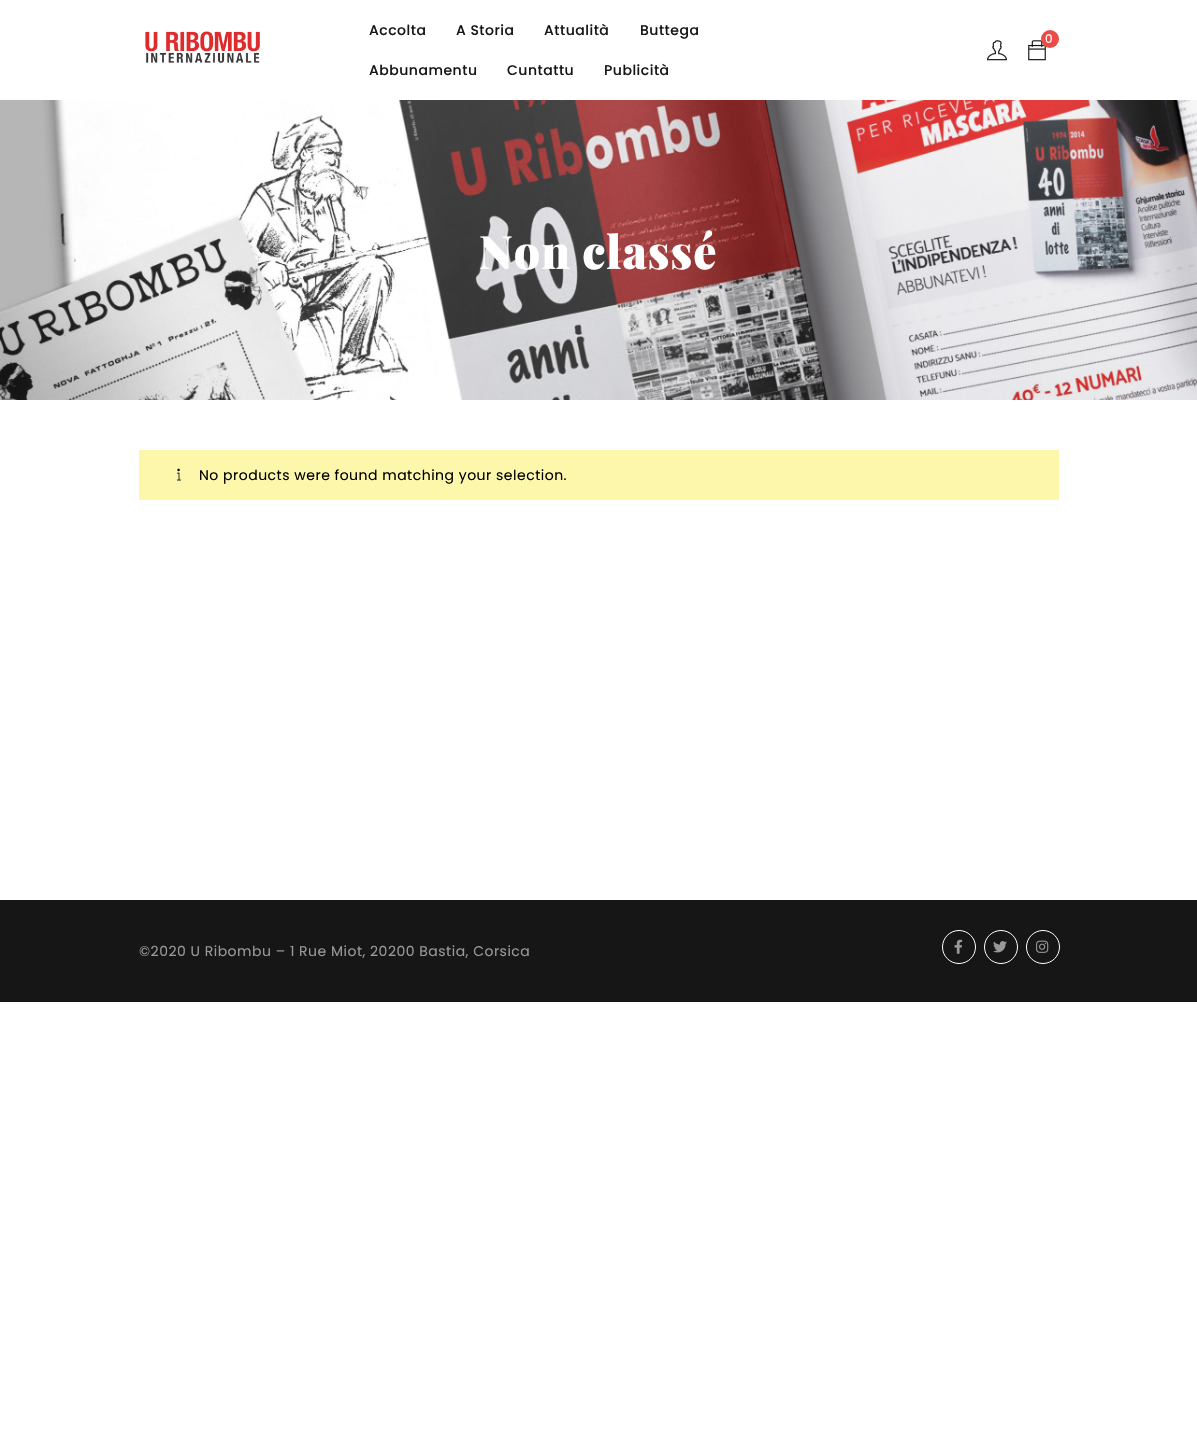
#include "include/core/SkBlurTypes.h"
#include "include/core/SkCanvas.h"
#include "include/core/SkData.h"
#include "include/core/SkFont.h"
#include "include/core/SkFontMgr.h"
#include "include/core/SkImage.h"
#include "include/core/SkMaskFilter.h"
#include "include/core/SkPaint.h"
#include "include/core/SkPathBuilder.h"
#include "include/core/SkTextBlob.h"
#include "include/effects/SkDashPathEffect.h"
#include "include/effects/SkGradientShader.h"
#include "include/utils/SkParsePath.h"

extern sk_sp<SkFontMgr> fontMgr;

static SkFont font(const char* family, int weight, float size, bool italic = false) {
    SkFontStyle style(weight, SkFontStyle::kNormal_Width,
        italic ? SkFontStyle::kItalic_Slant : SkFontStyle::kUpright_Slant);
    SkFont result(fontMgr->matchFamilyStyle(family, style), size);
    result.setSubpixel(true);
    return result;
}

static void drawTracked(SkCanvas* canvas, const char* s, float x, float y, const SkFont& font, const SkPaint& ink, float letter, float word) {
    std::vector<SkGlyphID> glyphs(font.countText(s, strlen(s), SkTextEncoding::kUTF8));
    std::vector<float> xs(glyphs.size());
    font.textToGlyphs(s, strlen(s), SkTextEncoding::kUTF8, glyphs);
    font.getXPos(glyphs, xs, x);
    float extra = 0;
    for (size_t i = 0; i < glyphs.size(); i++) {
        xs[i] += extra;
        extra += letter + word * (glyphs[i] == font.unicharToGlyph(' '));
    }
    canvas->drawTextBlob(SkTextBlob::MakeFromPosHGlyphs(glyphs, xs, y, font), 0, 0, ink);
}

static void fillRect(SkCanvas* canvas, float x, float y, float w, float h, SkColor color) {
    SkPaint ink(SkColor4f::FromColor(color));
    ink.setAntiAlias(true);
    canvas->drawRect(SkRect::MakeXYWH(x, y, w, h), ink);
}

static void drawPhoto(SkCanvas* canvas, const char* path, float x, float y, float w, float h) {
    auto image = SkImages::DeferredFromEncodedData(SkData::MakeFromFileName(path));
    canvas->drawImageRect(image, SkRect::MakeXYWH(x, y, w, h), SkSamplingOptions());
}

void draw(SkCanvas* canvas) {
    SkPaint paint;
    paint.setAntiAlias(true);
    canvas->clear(0xFFFFFFFF);
    drawPhoto(canvas, "assets/img1.png", 145, 31, 115, 32);
    SkFont font1 = font("Poppins", 500, 14);
    paint.setColor(0xFF161616);
    drawTracked(canvas, "Accolta", 369, 35, font1, paint, 0.5f, 0);
    drawTracked(canvas, "A Storia", 456, 35, font1, paint, 0.5f, 0);
    drawTracked(canvas, "Attualità", 544, 35, font1, paint, 0.5f, 0);
    drawTracked(canvas, "Buttega", 640, 35, font1, paint, 0.5f, 0);
    drawTracked(canvas, "Abbunamentu", 369, 75, font1, paint, 0.5f, 0);
    drawTracked(canvas, "Cuntattu", 507, 75, font1, paint, 0.5f, 0);
    drawTracked(canvas, "Publicità", 604, 75, font1, paint, 0.5f, 0);
    drawPhoto(canvas, "assets/img2.png", 1028, 40, 18, 21);
    paint.setColor(0xFFEA4D46);
    canvas->drawCircle(1050, 39, 9, paint);
    SkFont font2 = font("Poppins", 400, 12);
    paint.setColor(0xFFFFFFFF);
    drawTracked(canvas, "0", 1045, 43, font2, paint, 0.5f, 0);
    drawPhoto(canvas, "assets/img3.png", 987, 40, 20, 21);
    drawPhoto(canvas, "assets/img4.png", 0, 100, 1197, 300);
    SkFont font3 = font("Playfair Display", 900, 46);
    drawTracked(canvas, "Non classé", 479, 269, font3, paint, 1, 0);
    fillRect(canvas, 139, 450, 920, 50, 0xFFFDF7AB);
    drawPhoto(canvas, "assets/img5.png", 177, 468, 4, 13);
    SkFont font4 = font("Poppins", 400, 14);
    paint.setColor(0xFF000000);
    drawTracked(canvas, "No products were found matching your selection.", 199, 480, font4, paint, 0.5f, 0);
    fillRect(canvas, 0, 900, 1197, 102, 0xFF161616);
    paint.setColor(0xFF999999);
    drawTracked(canvas, "©2020 U Ribombu – 1 Rue Miot, 20200 Bastia, Corsica", 139, 956, font4, paint, 0.5f, 0);
    paint.setStroke(true);
    paint.setStrokeWidth(1);
    paint.setColor(0xFFFFFFFF);
    canvas->drawCircle(959, 947, 16.5f, paint);
    drawPhoto(canvas, "assets/img6.png", 954, 939, 9, 15);
    canvas->drawCircle(1001, 947, 16.5f, paint);
    drawPhoto(canvas, "assets/img7.png", 993, 941, 14, 12);
    canvas->drawCircle(1043, 947, 16.5f, paint);
    drawPhoto(canvas, "assets/img8.png", 1036, 940, 13, 13);
}
